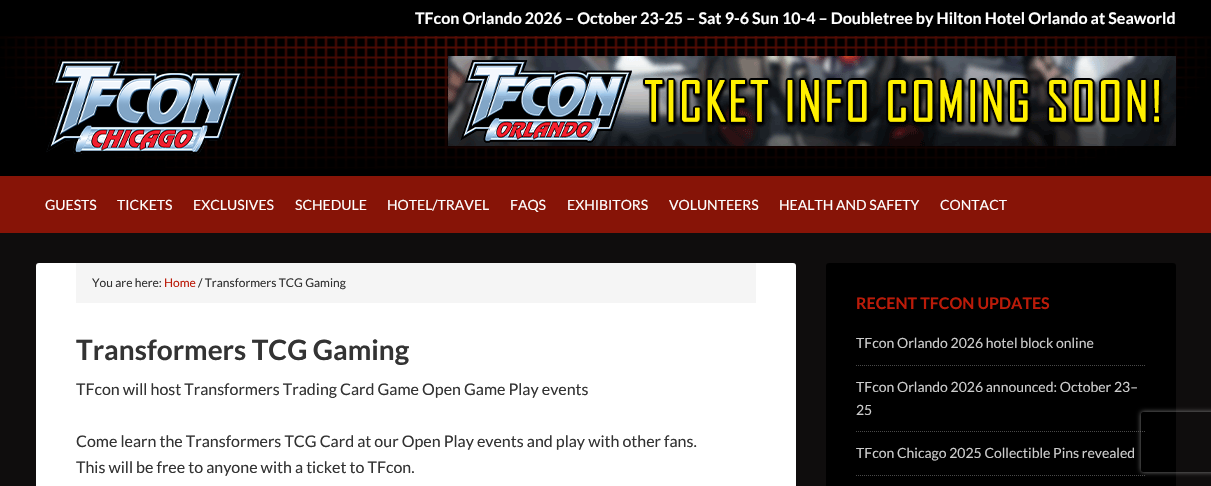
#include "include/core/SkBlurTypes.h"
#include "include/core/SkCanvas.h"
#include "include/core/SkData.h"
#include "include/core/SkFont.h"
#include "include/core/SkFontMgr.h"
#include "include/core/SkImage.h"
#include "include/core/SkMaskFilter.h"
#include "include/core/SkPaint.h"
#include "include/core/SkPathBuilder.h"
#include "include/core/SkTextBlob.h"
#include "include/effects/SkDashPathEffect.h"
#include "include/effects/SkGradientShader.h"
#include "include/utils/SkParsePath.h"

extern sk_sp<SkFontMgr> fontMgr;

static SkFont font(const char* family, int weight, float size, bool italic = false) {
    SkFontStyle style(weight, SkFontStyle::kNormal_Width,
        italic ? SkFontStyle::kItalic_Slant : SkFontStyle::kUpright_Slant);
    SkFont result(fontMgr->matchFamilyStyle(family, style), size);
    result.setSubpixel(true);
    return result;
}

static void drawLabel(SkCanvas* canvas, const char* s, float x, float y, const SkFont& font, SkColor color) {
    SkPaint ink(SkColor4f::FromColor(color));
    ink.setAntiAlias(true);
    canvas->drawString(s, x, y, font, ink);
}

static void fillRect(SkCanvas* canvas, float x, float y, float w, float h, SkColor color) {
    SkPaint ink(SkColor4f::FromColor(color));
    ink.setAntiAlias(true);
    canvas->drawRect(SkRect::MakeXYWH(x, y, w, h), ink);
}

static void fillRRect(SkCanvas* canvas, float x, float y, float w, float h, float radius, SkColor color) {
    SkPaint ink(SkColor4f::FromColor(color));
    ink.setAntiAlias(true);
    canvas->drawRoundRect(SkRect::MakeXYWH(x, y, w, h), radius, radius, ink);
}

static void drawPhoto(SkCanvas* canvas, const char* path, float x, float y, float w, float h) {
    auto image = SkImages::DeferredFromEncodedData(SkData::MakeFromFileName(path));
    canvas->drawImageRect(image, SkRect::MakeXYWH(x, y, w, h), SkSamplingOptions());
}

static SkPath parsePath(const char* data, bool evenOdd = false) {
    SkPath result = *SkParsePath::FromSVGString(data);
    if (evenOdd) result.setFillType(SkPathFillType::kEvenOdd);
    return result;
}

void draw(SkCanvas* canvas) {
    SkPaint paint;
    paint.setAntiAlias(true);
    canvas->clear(0xFF0F0D0D);
    fillRect(canvas, 0, 0, 1211, 36, 0xFF000000);
    SkFont font1 = font("Lato", 700, 16);
    drawLabel(canvas, "TFcon Orlando 2026 – October 23-25 – Sat 9-6 Sun 10-4 – Doubletree by Hilton Hotel Orlando at Seaworld", 415, 24, font1, 0xFFFFFFFF);
    fillRect(canvas, 0, 169, 1211, 7, 0xFF000000);
    drawPhoto(canvas, "assets/img1.png", 0, 36, 1211, 133);
    drawPhoto(canvas, "assets/img2.png", 46, 59, 198, 95);
    drawPhoto(canvas, "assets/img3.png", 448, 56, 728, 90);
    fillRect(canvas, 0, 176, 1211, 57, 0xFF871407);
    SkFont font2 = font("Lato", 400, 14);
    drawLabel(canvas, "GUESTS", 45, 210, font2, 0xFFFFFFFF);
    drawLabel(canvas, "TICKETS", 117, 210, font2, 0xFFFFFFFF);
    drawLabel(canvas, "EXCLUSIVES", 193, 210, font2, 0xFFFFFFFF);
    drawLabel(canvas, "SCHEDULE", 295, 210, font2, 0xFFFFFFFF);
    drawLabel(canvas, "HOTEL/TRAVEL", 387, 210, font2, 0xFFFFFFFF);
    drawLabel(canvas, "FAQS", 510, 210, font2, 0xFFFFFFFF);
    drawLabel(canvas, "EXHIBITORS", 567, 210, font2, 0xFFFFFFFF);
    drawLabel(canvas, "VOLUNTEERS", 669, 210, font2, 0xFFFFFFFF);
    drawLabel(canvas, "HEALTH AND SAFETY", 779, 210, font2, 0xFFFFFFFF);
    drawLabel(canvas, "CONTACT", 940, 210, font2, 0xFFFFFFFF);
    fillRRect(canvas, 36, 263, 760, 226, 3, 0xFFFFFFFF);
    fillRect(canvas, 76, 263, 680, 40, 0xFFF5F5F5);
    SkFont font3 = font("Lato", 400, 12);
    drawLabel(canvas, "You are here:", 92, 287, font3, 0xFF333333);
    drawLabel(canvas, "Home", 164, 287, font3, 0xFFBB1B09);
    drawLabel(canvas, "/ Transformers TCG Gaming", 198, 287, font3, 0xFF333333);
    SkFont font4 = font("Lato", 700, 28);
    drawLabel(canvas, "Transformers TCG Gaming", 76, 360, font4, 0xFF333333);
    SkFont font5 = font("Lato", 400, 16);
    drawLabel(canvas, "TFcon will host Transformers Trading Card Game Open Game Play events", 76, 395, font5, 0xFF333333);
    drawLabel(canvas, "Come learn the Transformers TCG Card at our Open Play events and play with other fans.", 76, 447, font5, 0xFF333333);
    drawLabel(canvas, "This will be free to anyone with a ticket to TFcon.", 76, 473, font5, 0xFF333333);
    fillRRect(canvas, 826, 263, 350, 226, 3, 0xFF000000);
    drawLabel(canvas, "RECENT TFCON UPDATES", 856, 309, font1, 0xFFBB1B09);
    paint.setStroke(true);
    paint.setStrokeWidth(1);
    paint.setColor(0xFF494949);
    paint.setPathEffect(SkDashPathEffect::Make({{1, 1}}, 0));
    canvas->drawPath(parsePath("M856 365.5H1146"), paint);
    paint.setPathEffect(nullptr);
    drawLabel(canvas, "TFcon Orlando 2026 hotel block online", 856, 348, font2, 0xFFCCCCCC);
    paint.setPathEffect(SkDashPathEffect::Make({{1, 1}}, 0));
    canvas->drawPath(parsePath("M856 431.5H1146"), paint);
    paint.setPathEffect(nullptr);
    drawLabel(canvas, "TFcon Orlando 2026 announced: October 23–", 856, 392, font2, 0xFFCCCCCC);
    drawLabel(canvas, "25", 856, 415, font2, 0xFFCCCCCC);
    paint.setPathEffect(SkDashPathEffect::Make({{1, 1}}, 0));
    canvas->drawPath(parsePath("M856 475.5H1146"), paint);
    paint.setPathEffect(nullptr);
    drawLabel(canvas, "TFcon Chicago 2025 Collectible Pins revealed", 856, 458, font2, 0xFFCCCCCC);
    canvas->save();
    canvas->clipPath(parsePath("M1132 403H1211V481H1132ZM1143 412H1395C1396 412 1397 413 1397 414V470C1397 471 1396 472 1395 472H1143C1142 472 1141 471 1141 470V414C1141 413 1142 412 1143 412Z", true), true);
    paint.setStroke(false);
    paint.setColor(0xFF808080);
    paint.setMaskFilter(SkMaskFilter::MakeBlur(kNormal_SkBlurStyle, 2.5f));
    canvas->drawRoundRect(SkRect::MakeXYWH(1141, 412, 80, 60), 2, 2, paint);
    paint.setMaskFilter(nullptr);
    canvas->restore();
}
